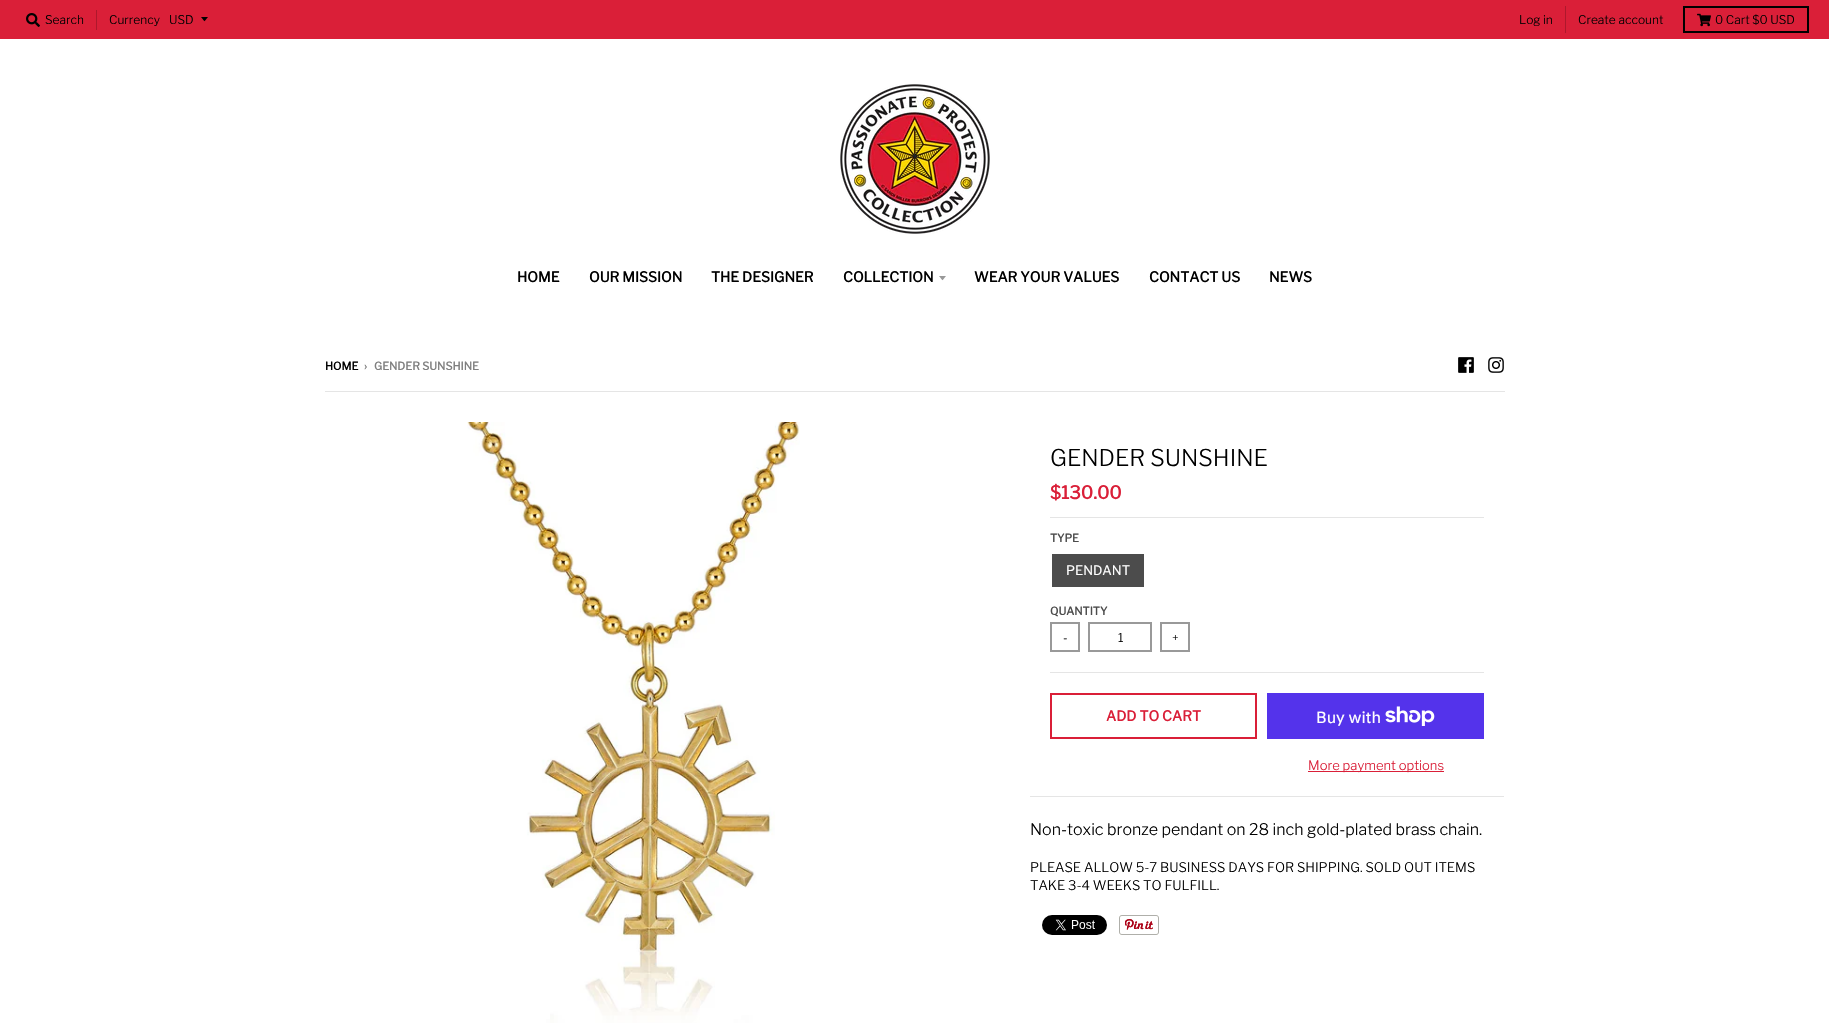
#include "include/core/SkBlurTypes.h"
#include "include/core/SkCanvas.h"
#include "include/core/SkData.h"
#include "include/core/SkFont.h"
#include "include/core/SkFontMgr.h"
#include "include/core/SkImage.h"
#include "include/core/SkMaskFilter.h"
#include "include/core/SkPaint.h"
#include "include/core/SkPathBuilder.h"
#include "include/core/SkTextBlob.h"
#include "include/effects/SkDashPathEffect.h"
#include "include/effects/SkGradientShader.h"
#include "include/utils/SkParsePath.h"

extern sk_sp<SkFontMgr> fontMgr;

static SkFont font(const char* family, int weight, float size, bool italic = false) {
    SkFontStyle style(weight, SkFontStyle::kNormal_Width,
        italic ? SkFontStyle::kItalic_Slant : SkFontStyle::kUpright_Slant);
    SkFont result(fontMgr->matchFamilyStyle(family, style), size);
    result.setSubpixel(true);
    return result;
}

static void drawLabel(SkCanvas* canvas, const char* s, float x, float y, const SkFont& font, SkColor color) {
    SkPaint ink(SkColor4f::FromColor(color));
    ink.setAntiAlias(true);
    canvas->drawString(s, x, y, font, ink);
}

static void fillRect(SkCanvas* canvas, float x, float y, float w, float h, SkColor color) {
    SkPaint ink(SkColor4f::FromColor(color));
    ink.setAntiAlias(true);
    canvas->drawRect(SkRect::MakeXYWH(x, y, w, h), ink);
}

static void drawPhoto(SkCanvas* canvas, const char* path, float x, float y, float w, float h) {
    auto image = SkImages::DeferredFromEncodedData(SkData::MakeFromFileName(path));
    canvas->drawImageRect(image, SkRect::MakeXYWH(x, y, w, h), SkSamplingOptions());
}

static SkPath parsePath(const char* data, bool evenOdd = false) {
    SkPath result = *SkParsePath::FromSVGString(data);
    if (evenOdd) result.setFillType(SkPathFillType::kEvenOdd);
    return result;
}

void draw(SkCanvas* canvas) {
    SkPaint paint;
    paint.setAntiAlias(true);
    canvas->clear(0xFFFFFFFF);
    fillRect(canvas, 0, 0, 1829, 39, 0xFFDA1F38);
    drawPhoto(canvas, "assets/img1.png", 26, 13, 14, 14);
    SkFont font1 = font("Libre Franklin", 300, 12);
    drawLabel(canvas, "Search", 45, 24, font1, 0xFF000000);
    fillRect(canvas, 96, 10, 1, 20, 0xFFAE182C);
    drawLabel(canvas, "Currency", 109, 24, font1, 0xFF000000);
    paint.setColor(0xFF000000);
    canvas->drawPath(parsePath("M201 17C205.5 22.5 203.5 22.5 208 17Z"), paint);
    drawLabel(canvas, "USD", 169, 24, font1, 0xFF000000);
    fillRect(canvas, 1565, 6, 1, 27, 0xFFAE182C);
    drawLabel(canvas, "Log in", 1519, 24, font1, 0xFF000000);
    drawLabel(canvas, "Create account", 1578, 24, font1, 0xFF000000);
    paint.setStroke(true);
    paint.setStrokeWidth(2);
    canvas->drawRect(SkRect::MakeXYWH(1684, 7, 124, 25), paint);
    drawPhoto(canvas, "assets/img2.png", 1697, 13, 14, 14);
    drawLabel(canvas, "0 Cart $0 USD", 1715, 24, font1, 0xFF000000);
    drawPhoto(canvas, "assets/img3.png", 840, 84, 150, 150);
    SkFont font2 = font("Libre Franklin", 700, 14);
    drawLabel(canvas, "HOME", 517, 282, font2, 0xFF000000);
    drawLabel(canvas, "OUR MISSION", 589, 282, font2, 0xFF000000);
    drawLabel(canvas, "THE DESIGNER", 711, 282, font2, 0xFF000000);
    drawLabel(canvas, "COLLECTION", 843, 282, font2, 0xFF000000);
    paint.setStroke(false);
    paint.setColor(0xFF999999);
    canvas->drawPath(parsePath("M939 276C943.5 281.5 941.5 281.5 946 276Z"), paint);
    drawLabel(canvas, "WEAR YOUR VALUES", 974, 282, font2, 0xFF000000);
    drawLabel(canvas, "CONTACT US", 1149, 282, font2, 0xFF000000);
    drawLabel(canvas, "NEWS", 1269, 282, font2, 0xFF000000);
    SkFont font3 = font("Libre Franklin", 700, 11);
    drawLabel(canvas, "HOME", 325, 370, font3, 0xFF000000);
    drawLabel(canvas, "›", 364, 370, font3, 0xFF7F7F7F);
    drawLabel(canvas, "GENDER SUNSHINE", 374, 370, font3, 0xFF7F7F7F);
    drawPhoto(canvas, "assets/img4.png", 1458, 357, 16, 16);
    drawPhoto(canvas, "assets/img5.png", 1488, 357, 16, 16);
    fillRect(canvas, 325, 391, 1180, 1, 0xFFE5E5E5);
    drawPhoto(canvas, "assets/img6.png", 467, 422, 333, 601);
    fillRect(canvas, 1030, 796, 474, 1, 0xFFE5E5E5);
    SkFont font4 = font("Libre Franklin", 300, 23);
    drawLabel(canvas, "GENDER SUNSHINE", 1050, 466, font4, 0xFF000000);
    fillRect(canvas, 1050, 517, 434, 1, 0xFFE5E5E5);
    SkFont font5 = font("Libre Franklin", 700, 18);
    drawLabel(canvas, "$130.00", 1050, 499, font5, 0xFFDA1F38);
    fillRect(canvas, 1050, 672, 434, 1, 0xFFE5E5E5);
    drawLabel(canvas, "TYPE", 1050, 542, font3, 0xFF4C4C4C);
    fillRect(canvas, 1052, 554, 92, 33, 0xFF4C4C4C);
    SkFont font6 = font("Libre Franklin", 400, 13);
    drawLabel(canvas, "PENDANT", 1066, 575, font6, 0xFFFFFFFF);
    drawLabel(canvas, "QUANTITY", 1050, 615, font3, 0xFF4C4C4C);
    paint.setStroke(true);
    canvas->drawRect(SkRect::MakeXYWH(1051, 623, 28, 28), paint);
    drawLabel(canvas, "-", 1063, 642, font1, 0xFF000000);
    canvas->drawRect(SkRect::MakeXYWH(1089, 623, 62, 28), paint);
    drawLabel(canvas, "1", 1118, 642, font1, 0xFF000000);
    canvas->drawRect(SkRect::MakeXYWH(1161, 623, 28, 28), paint);
    drawLabel(canvas, "+", 1172, 642, font1, 0xFF000000);
    paint.setColor(0xFFDA1F38);
    canvas->drawRect(SkRect::MakeXYWH(1051, 694, 205, 44), paint);
    drawLabel(canvas, "ADD TO CART", 1106, 721, font2, 0xFFDA1F38);
    fillRect(canvas, 1267, 693, 217, 46, 0xFF5433EB);
    SkFont font7 = font("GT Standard", 400, 16);
    drawLabel(canvas, "Buy with", 1316, 723, font7, 0xFFFFFFFF);
    drawPhoto(canvas, "assets/img7.png", 1385, 706, 50, 20);
    fillRect(canvas, 1308, 771, 136, 1, 0xFFDA1F38);
    SkFont font8 = font("Libre Franklin", 300, 13);
    drawLabel(canvas, "More payment options", 1308, 770, font8, 0xFFDA1F38);
    SkFont font9 = font("Libre Franklin", 300, 16);
    drawLabel(canvas, "Non-toxic bronze pendant on 28 inch gold-plated brass chain.", 1030, 835, font9, 0xFF000000);
    SkFont font10 = font("Libre Franklin", 300, 13.2f);
    drawLabel(canvas, "PLEASE ALLOW 5-7 BUSINESS DAYS FOR SHIPPING. SOLD OUT ITEMS", 1030, 872, font10, 0xFF000000);
    drawLabel(canvas, "TAKE 3-4 WEEKS TO FULFILL.", 1030, 890, font10, 0xFF000000);
    drawPhoto(canvas, "assets/img8.png", 1042, 915, 65, 20);
    drawPhoto(canvas, "assets/img9.png", 1119, 915, 40, 20);
}
